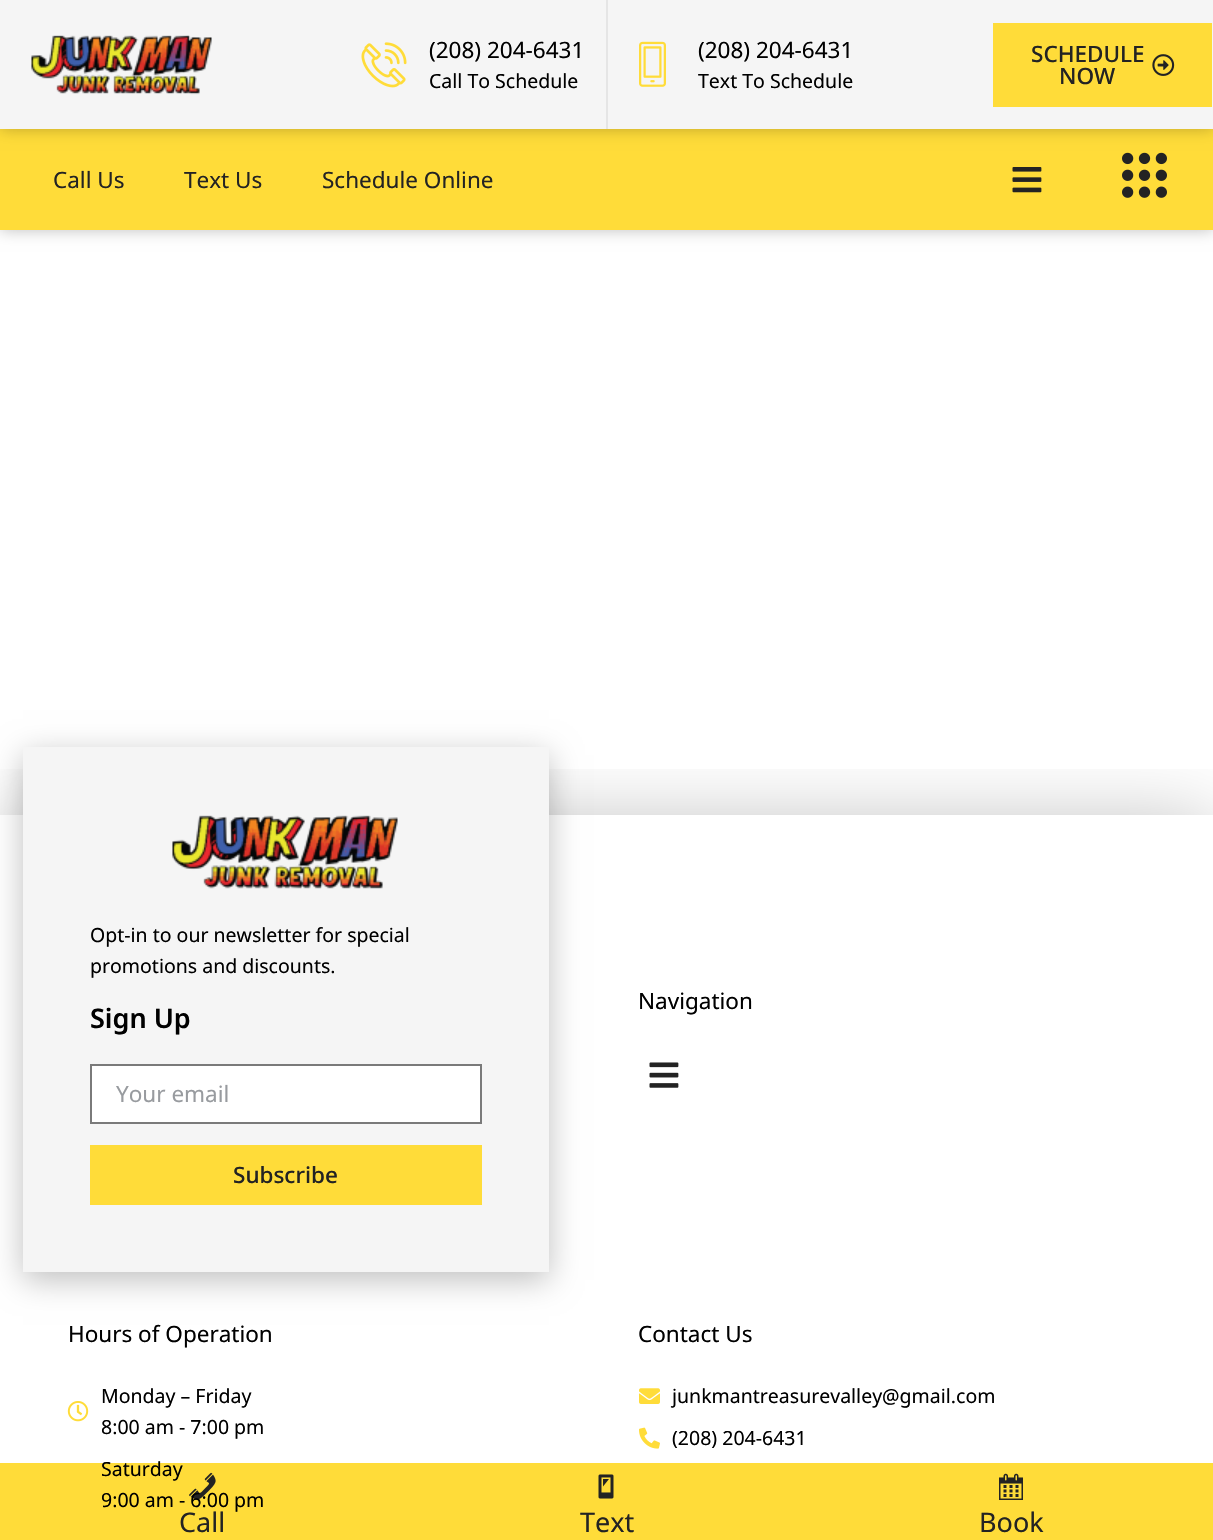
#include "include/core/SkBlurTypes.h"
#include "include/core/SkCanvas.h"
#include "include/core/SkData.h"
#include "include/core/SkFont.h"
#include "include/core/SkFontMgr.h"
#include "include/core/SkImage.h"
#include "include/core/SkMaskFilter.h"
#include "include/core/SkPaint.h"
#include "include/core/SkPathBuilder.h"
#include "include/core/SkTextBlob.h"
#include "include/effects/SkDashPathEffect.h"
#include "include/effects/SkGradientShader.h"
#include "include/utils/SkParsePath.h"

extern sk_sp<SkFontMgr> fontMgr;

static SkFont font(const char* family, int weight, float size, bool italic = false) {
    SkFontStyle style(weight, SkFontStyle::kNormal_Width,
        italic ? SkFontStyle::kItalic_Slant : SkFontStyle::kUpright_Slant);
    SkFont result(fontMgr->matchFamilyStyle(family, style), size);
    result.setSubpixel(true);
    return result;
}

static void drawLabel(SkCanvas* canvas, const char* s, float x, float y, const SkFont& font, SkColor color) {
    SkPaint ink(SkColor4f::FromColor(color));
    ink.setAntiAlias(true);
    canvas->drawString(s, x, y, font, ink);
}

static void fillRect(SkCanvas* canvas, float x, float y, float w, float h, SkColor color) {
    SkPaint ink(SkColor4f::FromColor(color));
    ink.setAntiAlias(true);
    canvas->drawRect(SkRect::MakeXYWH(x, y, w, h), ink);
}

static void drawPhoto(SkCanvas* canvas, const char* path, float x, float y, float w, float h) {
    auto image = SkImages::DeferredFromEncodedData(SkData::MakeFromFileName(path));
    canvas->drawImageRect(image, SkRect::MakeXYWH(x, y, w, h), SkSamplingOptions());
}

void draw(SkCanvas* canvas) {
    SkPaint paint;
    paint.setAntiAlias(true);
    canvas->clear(0xFFFFFFFF);
    paint.setColor(0x40000000);
    paint.setMaskFilter(SkMaskFilter::MakeBlur(kNormal_SkBlurStyle, 7.5f));
    canvas->drawRect(SkRect::MakeXYWH(0, 129, 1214, 101), paint);
    paint.setMaskFilter(nullptr);
    fillRect(canvas, 0, 129, 1213, 101, 0xFFFFDC39);
    drawPhoto(canvas, "assets/img6.png", 1122, 152, 45, 46);
    paint.setMaskFilter(SkMaskFilter::MakeBlur(kNormal_SkBlurStyle, 7.5f));
    canvas->drawRect(SkRect::MakeXYWH(0, 0, 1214, 129), paint);
    paint.setMaskFilter(nullptr);
    fillRect(canvas, 0, 0, 1213, 129, 0xFFF5F5F5);
    drawPhoto(canvas, "assets/img1.png", 31, 35, 181, 60);
    drawPhoto(canvas, "assets/img2.png", 361, 42, 46, 46);
    SkFont font1 = font("Noto Sans", 400, 22.5f);
    drawLabel(canvas, "(208) 204-6431", 429, 58, font1, 0xFF000000);
    SkFont font2 = font("Noto Sans", 400, 19.5f);
    drawLabel(canvas, "Call To Schedule", 429, 88, font2, 0xFF000000);
    fillRect(canvas, 606, 0, 2, 129, 0xFFE5E5E5);
    drawPhoto(canvas, "assets/img3.png", 639, 41, 27, 46);
    drawLabel(canvas, "(208) 204-6431", 698, 58, font1, 0xFF000000);
    drawLabel(canvas, "Text To Schedule", 698, 88, font2, 0xFF000000);
    fillRect(canvas, 993, 23, 219, 84, 0xFFFFDC39);
    SkFont font3 = font("Noto Sans", 500, 22.5f);
    drawLabel(canvas, "SCHEDULE", 1031, 62, font3, 0xFF232323);
    drawLabel(canvas, "NOW", 1059, 84, font3, 0xFF232323);
    drawPhoto(canvas, "assets/img4.png", 1152, 54, 23, 22);
    drawLabel(canvas, "Call Us", 53, 188, font1, 0xFF232323);
    drawLabel(canvas, "Text Us", 184, 188, font1, 0xFF232323);
    drawLabel(canvas, "Schedule Online", 322, 188, font1, 0xFF232323);
    drawPhoto(canvas, "assets/img5.png", 1012, 167, 30, 26);
    fillRect(canvas, 0, 1463, 1213, 77, 0xFFFFDC39);
    drawPhoto(canvas, "assets/img12.png", 189, 1472, 27, 28);
    drawPhoto(canvas, "assets/img13.png", 598, 1474, 16, 25);
    drawPhoto(canvas, "assets/img14.png", 999, 1473, 24, 27);
    canvas->save();
    canvas->clipRect(SkRect::MakeXYWH(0, 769, 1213, 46));
    paint.setMaskFilter(SkMaskFilter::MakeBlur(kNormal_SkBlurStyle, 37.5f));
    canvas->drawRect(SkRect::MakeXYWH(0, 822, 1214, 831), paint);
    paint.setMaskFilter(nullptr);
    canvas->restore();
    paint.setMaskFilter(SkMaskFilter::MakeBlur(kNormal_SkBlurStyle, 15));
    canvas->drawRect(SkRect::MakeXYWH(23, 755, 526, 525), paint);
    paint.setMaskFilter(nullptr);
    fillRect(canvas, 23, 747, 526, 525, 0xFFF5F5F5);
    drawPhoto(canvas, "assets/img7.png", 172, 815, 226, 74);
    drawLabel(canvas, "Opt-in to our newsletter for special", 90, 942, font2, 0xFF000000);
    drawLabel(canvas, "promotions and discounts.", 90, 973, font2, 0xFF000000);
    SkFont font4 = font("Noto Sans", 600, 27);
    drawLabel(canvas, "Sign Up", 90, 1028, font4, 0xFF000000);
    paint.setColor(0xFFFFFFFF);
    canvas->drawRect(SkRect::MakeXYWH(91, 1065, 390, 58), paint);
    paint.setStroke(true);
    paint.setStrokeWidth(2);
    paint.setColor(0xFF7A7A7A);
    canvas->drawRect(SkRect::MakeXYWH(91, 1065, 390, 58), paint);
    drawLabel(canvas, "Your email", 116, 1102, font1, 0xFF989B9F);
    fillRect(canvas, 90, 1145, 392, 60, 0xFFFFDC39);
    drawLabel(canvas, "Subscribe", 233, 1183, font3, 0xFF232323);
    drawLabel(canvas, "Navigation", 638, 1009, font1, 0xFF000000);
    drawPhoto(canvas, "assets/img8.png", 649, 1062, 30, 26);
    drawLabel(canvas, "Hours of Operation", 68, 1342, font1, 0xFF000000);
    drawPhoto(canvas, "assets/img9.png", 67, 1401, 22, 21);
    drawLabel(canvas, "Monday – Friday", 101, 1403, font2, 0xFF000000);
    drawLabel(canvas, "8:00 am - 7:00 pm", 101, 1434, font2, 0xFF000000);
    drawLabel(canvas, "Saturday", 101, 1476, font2, 0xFF000000);
    drawLabel(canvas, "9:00 am - 6:00 pm", 101, 1507, font2, 0xFF000000);
    drawLabel(canvas, "Contact Us", 638, 1342, font1, 0xFF000000);
    drawPhoto(canvas, "assets/img10.png", 639, 1388, 21, 16);
    drawLabel(canvas, "junkmantreasurevalley@gmail.com", 672, 1403, font2, 0xFF000000);
    drawPhoto(canvas, "assets/img11.png", 639, 1427, 21, 22);
    drawLabel(canvas, "(208) 204-6431", 672, 1445, font2, 0xFF000000);
    SkFont font5 = font("Noto Sans", 400, 27);
    drawLabel(canvas, "Call", 179, 1532, font5, 0xFF232323);
    drawLabel(canvas, "Text", 580, 1532, font5, 0xFF232323);
    drawLabel(canvas, "Book", 979, 1532, font5, 0xFF232323);
}
